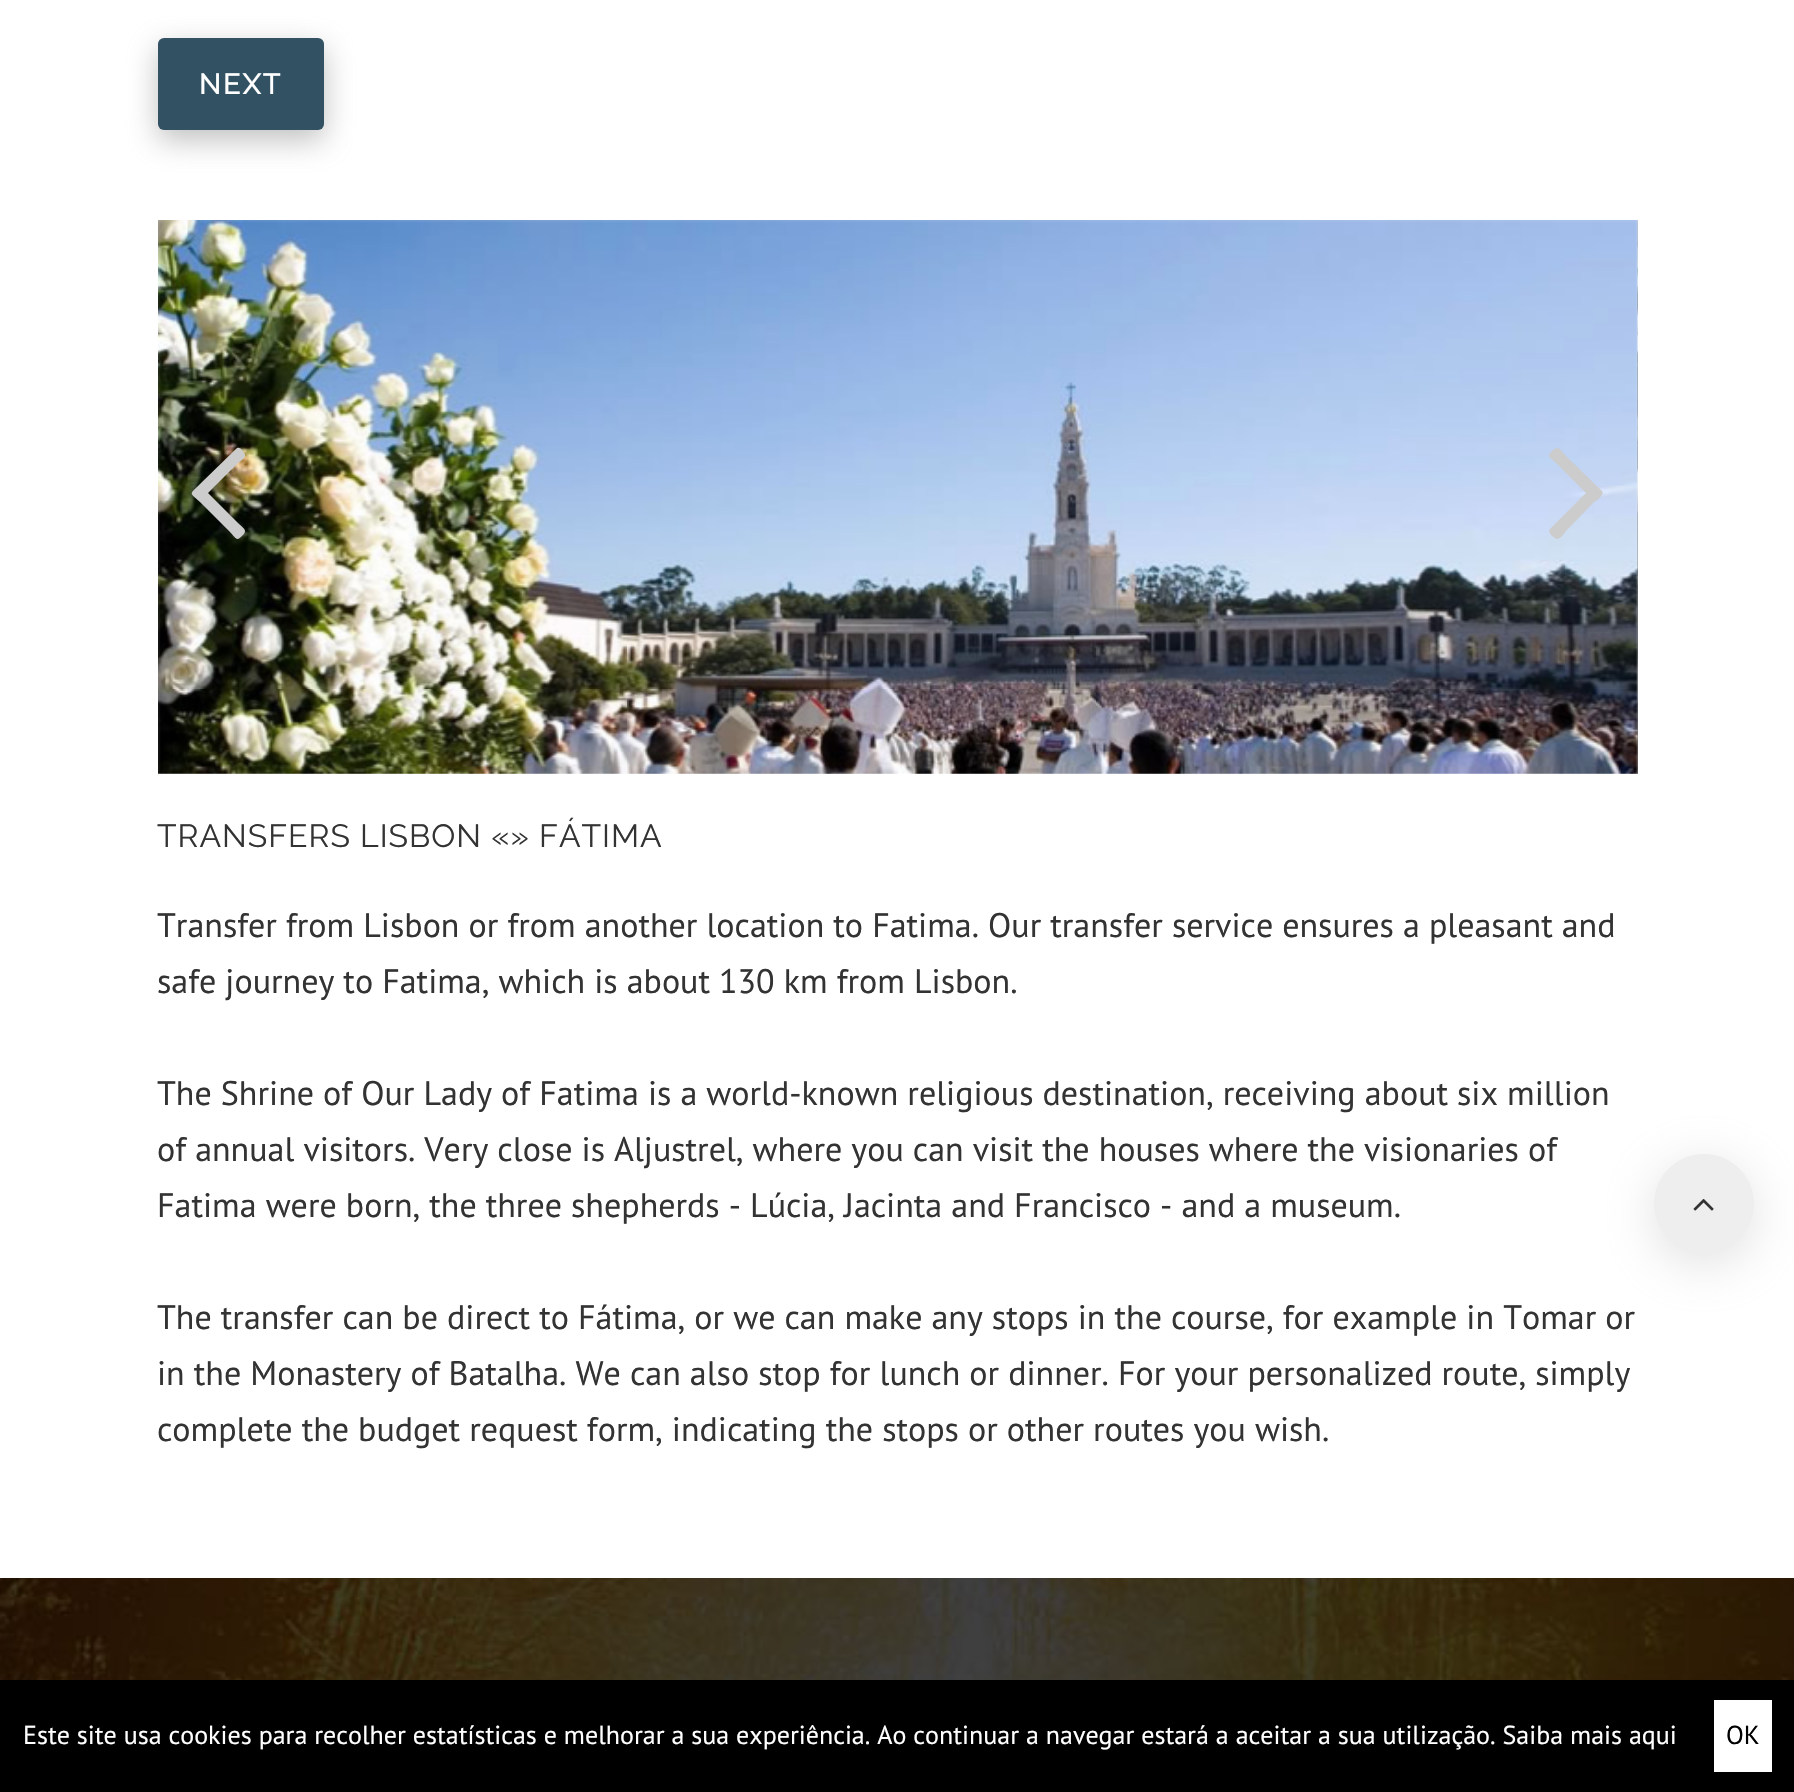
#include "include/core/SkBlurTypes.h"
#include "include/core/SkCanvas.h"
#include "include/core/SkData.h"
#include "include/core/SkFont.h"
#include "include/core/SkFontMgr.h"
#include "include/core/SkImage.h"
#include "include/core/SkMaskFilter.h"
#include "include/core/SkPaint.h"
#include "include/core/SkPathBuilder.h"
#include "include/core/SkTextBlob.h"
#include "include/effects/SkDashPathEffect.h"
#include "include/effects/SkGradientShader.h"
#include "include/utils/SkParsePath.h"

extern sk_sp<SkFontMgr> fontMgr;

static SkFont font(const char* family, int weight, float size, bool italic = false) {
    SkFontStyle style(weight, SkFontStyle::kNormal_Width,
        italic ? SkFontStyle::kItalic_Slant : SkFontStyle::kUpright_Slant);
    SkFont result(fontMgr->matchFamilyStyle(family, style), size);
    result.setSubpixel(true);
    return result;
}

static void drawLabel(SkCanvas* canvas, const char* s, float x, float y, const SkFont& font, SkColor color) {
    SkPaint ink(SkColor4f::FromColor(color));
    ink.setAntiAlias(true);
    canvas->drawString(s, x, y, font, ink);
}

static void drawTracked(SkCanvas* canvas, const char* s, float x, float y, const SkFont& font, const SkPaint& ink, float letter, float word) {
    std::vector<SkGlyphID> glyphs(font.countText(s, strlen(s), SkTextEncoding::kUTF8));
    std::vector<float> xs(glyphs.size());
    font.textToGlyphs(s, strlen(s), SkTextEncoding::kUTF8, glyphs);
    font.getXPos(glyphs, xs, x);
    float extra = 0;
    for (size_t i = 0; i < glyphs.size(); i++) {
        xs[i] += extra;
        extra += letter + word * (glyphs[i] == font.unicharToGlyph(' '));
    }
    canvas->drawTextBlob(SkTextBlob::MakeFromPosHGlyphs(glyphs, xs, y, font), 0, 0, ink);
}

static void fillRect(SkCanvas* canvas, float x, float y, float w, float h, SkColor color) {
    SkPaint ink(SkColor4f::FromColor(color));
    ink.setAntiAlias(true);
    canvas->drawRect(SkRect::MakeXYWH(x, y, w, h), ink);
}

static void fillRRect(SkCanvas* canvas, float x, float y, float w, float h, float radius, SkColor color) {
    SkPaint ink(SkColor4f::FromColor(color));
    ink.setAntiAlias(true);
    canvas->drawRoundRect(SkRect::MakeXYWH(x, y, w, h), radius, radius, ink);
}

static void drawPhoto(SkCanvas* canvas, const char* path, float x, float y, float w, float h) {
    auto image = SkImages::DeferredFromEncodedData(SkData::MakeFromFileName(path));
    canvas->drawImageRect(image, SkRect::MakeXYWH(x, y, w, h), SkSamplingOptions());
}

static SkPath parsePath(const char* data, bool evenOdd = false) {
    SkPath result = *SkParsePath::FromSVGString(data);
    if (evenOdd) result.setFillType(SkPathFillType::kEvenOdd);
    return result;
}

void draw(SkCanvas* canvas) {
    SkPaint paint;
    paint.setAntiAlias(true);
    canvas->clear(0xFFFFFFFF);
    paint.setColor(0xA1999999);
    paint.setMaskFilter(SkMaskFilter::MakeBlur(kNormal_SkBlurStyle, 15));
    canvas->drawRoundRect(SkRect::MakeXYWH(158, 48, 166, 92), 6, 6, paint);
    paint.setMaskFilter(nullptr);
    fillRRect(canvas, 158, 38, 166, 92, 6, 0xFF325163);
    SkFont font1 = font("Raleway", 700, 28);
    paint.setColor(0xFFFFFFFF);
    drawTracked(canvas, "NEXT", 199, 94, font1, paint, 2.5f, 0);
    drawPhoto(canvas, "assets/img1.png", 158, 220, 1480, 554);
    drawPhoto(canvas, "assets/img2.png", 1637, 220, 1, 554);
    paint.setColor(0xFFCCCCCC);
    canvas->drawPath(parsePath("M244 453C248 457 239 462 238 463L208 493L238 523C243 528 248 530 243 535C236 542 237 539 229 531L200 502C189 492 189 495 200 484L236 449C239 445 243 451 244 453Z"), paint);
    canvas->drawPath(parsePath("M1602 491C1605 495 1595 502 1594 502L1566 531C1566 531 1559 542 1555 538C1553 537 1547 532 1550 529L1586 493L1556 463C1550 457 1546 457 1552 451C1559 445 1559 449 1566 456Z"), paint);
    SkFont font2 = font("Raleway", 100, 32);
    paint.setColor(0xFF333333);
    drawTracked(canvas, "TRANSFERS LISBON «» FÁTIMA", 157, 847, font2, paint, 1, 0);
    SkFont font3 = font("PT Sans", 400, 34);
    drawLabel(canvas, "Transfer from Lisbon or from another location to Fatima. Our transfer service ensures a pleasant and", 157, 937, font3, 0xFF333333);
    drawLabel(canvas, "safe journey to Fatima, which is about 130 km from Lisbon.", 157, 993, font3, 0xFF333333);
    drawLabel(canvas, "The Shrine of Our Lady of Fatima is a world-known religious destination, receiving about six million", 157, 1105, font3, 0xFF333333);
    drawLabel(canvas, "of annual visitors. Very close is Aljustrel, where you can visit the houses where the visionaries of", 157, 1161, font3, 0xFF333333);
    drawLabel(canvas, "Fatima were born, the three shepherds - Lúcia, Jacinta and Francisco - and a museum.", 157, 1217, font3, 0xFF333333);
    drawLabel(canvas, "The transfer can be direct to Fátima, or we can make any stops in the course, for example in Tomar or", 157, 1329, font3, 0xFF333333);
    drawLabel(canvas, "in the Monastery of Batalha. We can also stop for lunch or dinner. For your personalized route, simply", 157, 1385, font3, 0xFF333333);
    drawLabel(canvas, "complete the budget request form, indicating the stops or other routes you wish.", 157, 1441, font3, 0xFF333333);
    drawPhoto(canvas, "assets/img3.png", 0, 1578, 1794, 102);
    paint.setColor(0x73BBBBBB);
    paint.setMaskFilter(SkMaskFilter::MakeBlur(kNormal_SkBlurStyle, 25));
    canvas->drawRoundRect(SkRect::MakeXYWH(1654, 1164, 100, 100), 50, 50, paint);
    paint.setMaskFilter(nullptr);
    paint.setColor(0xFFEEEEEE);
    canvas->drawCircle(1704, 1204, 50, paint);
    drawPhoto(canvas, "assets/img4.png", 1693, 1199, 21, 12);
    fillRect(canvas, 0, 1680, 1794, 112, 0xFF000000);
    SkFont font4 = font("PT Sans", 400, 26);
    drawLabel(canvas, "Este site usa cookies para recolher estatísticas e melhorar a sua experiência. Ao continuar a navegar estará a aceitar a sua utilização. Saiba mais aqui", 23, 1744, font4, 0xFFFFFFFF);
    fillRect(canvas, 1714, 1700, 58, 72, 0xFFFFFFFF);
    drawLabel(canvas, "OK", 1726, 1744, font4, 0xFF000000);
}
